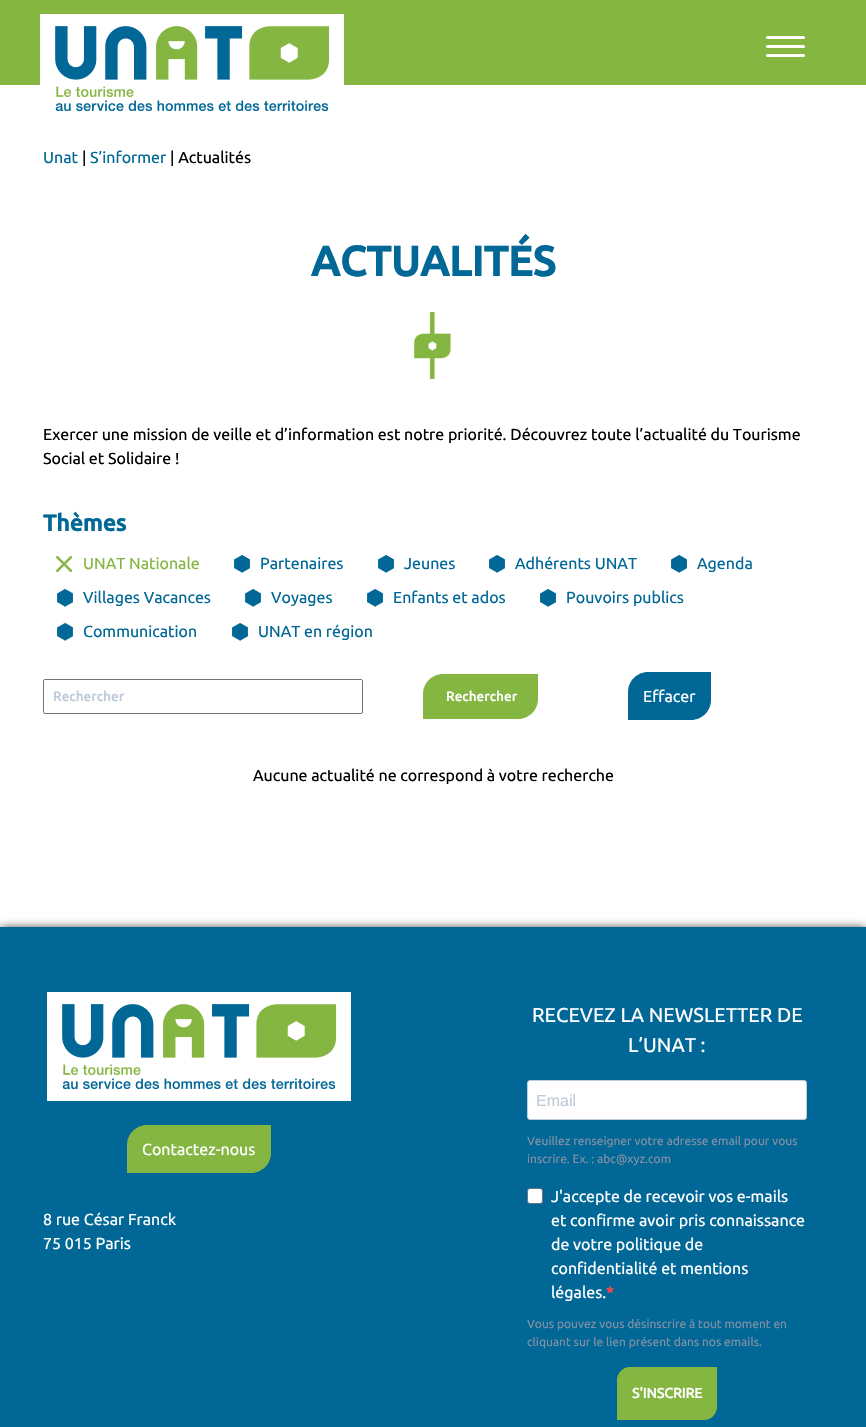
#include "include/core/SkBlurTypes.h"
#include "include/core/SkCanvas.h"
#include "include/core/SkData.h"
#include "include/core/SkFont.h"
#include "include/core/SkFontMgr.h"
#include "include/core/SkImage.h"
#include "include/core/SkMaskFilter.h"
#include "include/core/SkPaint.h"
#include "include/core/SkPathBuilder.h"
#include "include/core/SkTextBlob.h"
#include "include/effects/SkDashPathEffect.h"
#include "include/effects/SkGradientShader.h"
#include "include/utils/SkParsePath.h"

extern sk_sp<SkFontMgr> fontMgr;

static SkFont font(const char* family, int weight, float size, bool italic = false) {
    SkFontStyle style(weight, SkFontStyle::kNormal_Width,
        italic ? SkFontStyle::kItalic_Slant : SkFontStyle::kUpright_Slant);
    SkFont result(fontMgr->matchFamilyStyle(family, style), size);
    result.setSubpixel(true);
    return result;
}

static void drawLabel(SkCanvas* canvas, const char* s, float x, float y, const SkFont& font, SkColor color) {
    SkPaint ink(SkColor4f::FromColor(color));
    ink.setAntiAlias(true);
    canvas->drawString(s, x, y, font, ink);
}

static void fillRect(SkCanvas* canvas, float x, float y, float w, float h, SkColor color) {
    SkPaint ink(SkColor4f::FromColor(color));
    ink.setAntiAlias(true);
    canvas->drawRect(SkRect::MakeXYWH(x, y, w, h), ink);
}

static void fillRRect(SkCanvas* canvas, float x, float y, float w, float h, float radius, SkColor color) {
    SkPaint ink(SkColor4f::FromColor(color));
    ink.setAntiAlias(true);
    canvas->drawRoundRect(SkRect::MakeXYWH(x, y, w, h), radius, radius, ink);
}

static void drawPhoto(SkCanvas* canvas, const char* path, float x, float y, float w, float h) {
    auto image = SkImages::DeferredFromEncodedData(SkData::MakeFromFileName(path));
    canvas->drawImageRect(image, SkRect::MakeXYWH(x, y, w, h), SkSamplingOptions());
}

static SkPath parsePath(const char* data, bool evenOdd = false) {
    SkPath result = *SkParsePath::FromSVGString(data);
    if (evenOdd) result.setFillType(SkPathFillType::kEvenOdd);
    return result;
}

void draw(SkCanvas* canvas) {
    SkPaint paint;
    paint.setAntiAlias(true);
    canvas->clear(0xFFFFFFFF);
    fillRect(canvas, 0, 0, 866, 85, 0xFF86B642);
    fillRect(canvas, 40, 14, 304, 71, 0xFFFFFFFF);
    drawPhoto(canvas, "assets/img1.png", 55, 26, 275, 86);
    fillRRect(canvas, 766, 45, 39, 3, 1.5f, 0xFFFFFFFF);
    fillRRect(canvas, 766, 36, 39, 3, 1.5f, 0xFFFFFFFF);
    fillRRect(canvas, 766, 54, 39, 3, 1.5f, 0xFFFFFFFF);
    SkFont font1 = font("Ubuntu", 400, 16);
    drawLabel(canvas, "Unat", 43, 163, font1, 0xFF006796);
    drawLabel(canvas, "|", 82, 163, font1, 0xFF000000);
    drawLabel(canvas, "S’informer", 90, 163, font1, 0xFF006796);
    drawLabel(canvas, "| Actualités", 170, 163, font1, 0xFF000000);
    SkFont font2 = font("Ubuntu", 700, 42);
    drawLabel(canvas, "ACTUALITÉS", 311, 276, font2, 0xFF006796);
    drawPhoto(canvas, "assets/img2.png", 414, 312, 37, 67);
    drawLabel(canvas, "Exercer une mission de veille et d’information est notre priorité. Découvrez toute l’actualité du Tourisme", 43, 440, font1, 0xFF000000);
    drawLabel(canvas, "Social et Solidaire !", 43, 464, font1, 0xFF000000);
    SkFont font3 = font("Ubuntu", 700, 23);
    drawLabel(canvas, "Thèmes", 43, 531, font3, 0xFF006796);
    drawPhoto(canvas, "assets/img3.png", 56, 556, 16, 16);
    drawLabel(canvas, "UNAT Nationale", 83, 569, font1, 0xFF86B642);
    drawPhoto(canvas, "assets/img4.png", 234, 555, 16, 18);
    drawLabel(canvas, "Partenaires", 260, 569, font1, 0xFF006796);
    drawPhoto(canvas, "assets/img4.png", 378, 555, 16, 18);
    drawLabel(canvas, "Jeunes", 404, 569, font1, 0xFF006796);
    drawPhoto(canvas, "assets/img4.png", 489, 555, 16, 18);
    drawLabel(canvas, "Adhérents UNAT", 515, 569, font1, 0xFF006796);
    drawPhoto(canvas, "assets/img4.png", 671, 555, 16, 18);
    drawLabel(canvas, "Agenda", 697, 569, font1, 0xFF006796);
    drawPhoto(canvas, "assets/img4.png", 57, 589, 16, 18);
    drawLabel(canvas, "Villages Vacances", 83, 603, font1, 0xFF006796);
    drawPhoto(canvas, "assets/img4.png", 245, 589, 16, 18);
    drawLabel(canvas, "Voyages", 271, 603, font1, 0xFF006796);
    drawPhoto(canvas, "assets/img4.png", 367, 589, 16, 18);
    drawLabel(canvas, "Enfants et ados", 393, 603, font1, 0xFF006796);
    drawPhoto(canvas, "assets/img4.png", 540, 589, 16, 18);
    drawLabel(canvas, "Pouvoirs publics", 566, 603, font1, 0xFF006796);
    drawPhoto(canvas, "assets/img4.png", 57, 623, 16, 18);
    drawLabel(canvas, "Communication", 83, 637, font1, 0xFF006796);
    drawPhoto(canvas, "assets/img4.png", 232, 623, 16, 18);
    drawLabel(canvas, "UNAT en région", 258, 637, font1, 0xFF006796);
    paint.setStroke(true);
    paint.setStrokeWidth(1);
    paint.setColor(0xFF767676);
    canvas->drawRoundRect(SkRect::MakeXYWH(43.5f, 679.5f, 319, 34), 1.5f, 1.5f, paint);
    SkFont font4 = font("Ubuntu", 500, 13.5f);
    drawLabel(canvas, "Rechercher", 53, 701, font4, 0xFFBFCAD8);
    paint.setStroke(false);
    paint.setColor(0xFF86B642);
    canvas->drawPath(parsePath("M443 674H538V699C538 710 529 719 518 719H423V694C423 683 432 674 443 674Z"), paint);
    drawLabel(canvas, "Rechercher", 446, 701, font4, 0xFFFFFFFF);
    paint.setColor(0xFF006796);
    canvas->drawPath(parsePath("M648 672H711V700C711 711 702 720 691 720H628V692C628 681 637 672 648 672Z"), paint);
    drawLabel(canvas, "Effacer", 643, 702, font1, 0xFFFFFFFF);
    drawLabel(canvas, "Aucune actualité ne correspond à votre recherche", 253, 781, font1, 0xFF000000);
    paint.setColor(0xFF000000);
    paint.setMaskFilter(SkMaskFilter::MakeBlur(kNormal_SkBlurStyle, 5));
    canvas->drawRect(SkRect::MakeXYWH(0, 929, 866, 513), paint);
    paint.setMaskFilter(nullptr);
    fillRect(canvas, 0, 927, 866, 500, 0xFF006796);
    fillRect(canvas, 47, 992, 304, 109, 0xFFFFFFFF);
    drawPhoto(canvas, "assets/img1.png", 62, 1004, 275, 86);
    paint.setColor(0xFF86B642);
    canvas->drawPath(parsePath("M147 1125H271V1153C271 1164 262 1173 251 1173H127V1145C127 1134 136 1125 147 1125Z"), paint);
    drawLabel(canvas, "Contactez-nous", 142, 1155, font1, 0xFFFFFFFF);
    drawLabel(canvas, "8 rue César Franck", 43, 1225, font1, 0xFFFFFFFF);
    drawLabel(canvas, "75 015 Paris", 43, 1249, font1, 0xFFFFFFFF);
    SkFont font5 = font("Ubuntu", 400, 20);
    drawLabel(canvas, "RECEVEZ LA NEWSLETTER DE", 532, 1022, font5, 0xFFFFFFFF);
    drawLabel(canvas, "L’UNAT :", 628, 1052, font5, 0xFFFFFFFF);
    paint.setColor(0xFFFFFFFF);
    canvas->drawRoundRect(SkRect::MakeXYWH(527.5f, 1080.5f, 279, 39), 2.5f, 2.5f, paint);
    paint.setStroke(true);
    paint.setColor(0xFFC0CCDA);
    canvas->drawRoundRect(SkRect::MakeXYWH(527.5f, 1080.5f, 279, 39), 2.5f, 2.5f, paint);
    SkFont font6 = font("Liberation Sans", 400, 16);
    drawLabel(canvas, "Email", 536, 1106, font6, 0xFFBFCAD8);
    SkFont font7 = font("Ubuntu", 400, 12);
    drawLabel(canvas, "Veuillez renseigner votre adresse email pour vous", 527, 1145, font7, 0xFF8390A4);
    drawLabel(canvas, "inscrire. Ex. : abc@xyz.com", 527, 1163, font7, 0xFF8390A4);
    paint.setStroke(false);
    paint.setColor(0xFFFFFFFF);
    canvas->drawRoundRect(SkRect::MakeXYWH(527.5f, 1188.5f, 15, 15), 2.5f, 2.5f, paint);
    paint.setStroke(true);
    paint.setColor(0xFF687484);
    canvas->drawRoundRect(SkRect::MakeXYWH(527.5f, 1188.5f, 15, 15), 2.5f, 2.5f, paint);
    drawLabel(canvas, "J'accepte de recevoir vos e-mails", 551, 1202, font1, 0xFFFFFFFF);
    drawLabel(canvas, "et confirme avoir pris connaissance", 551, 1226, font1, 0xFFFFFFFF);
    drawLabel(canvas, "de votre politique de", 551, 1250, font1, 0xFFFFFFFF);
    drawLabel(canvas, "confidentialité et mentions", 551, 1274, font1, 0xFFFFFFFF);
    drawLabel(canvas, "légales.", 551, 1298, font1, 0xFFFFFFFF);
    SkFont font8 = font("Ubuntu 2", 700, 16);
    drawLabel(canvas, "*", 606, 1298, font8, 0xFFFF4949);
    drawLabel(canvas, "Vous pouvez vous désinscrire à tout moment en", 527, 1328, font7, 0xFF8390A4);
    drawLabel(canvas, "cliquant sur le lien présent dans nos emails.", 527, 1346, font7, 0xFF8390A4);
    paint.setStroke(false);
    paint.setColor(0xFF86B642);
    canvas->drawPath(parsePath("M630 1367H717V1407C717 1414 711 1420 704 1420H617V1380C617 1373 623 1367 630 1367Z"), paint);
    SkFont font9 = font("Ubuntu 2", 700, 14);
    drawLabel(canvas, "S'INSCRIRE", 632, 1398, font9, 0xFFFFFFFF);
}
